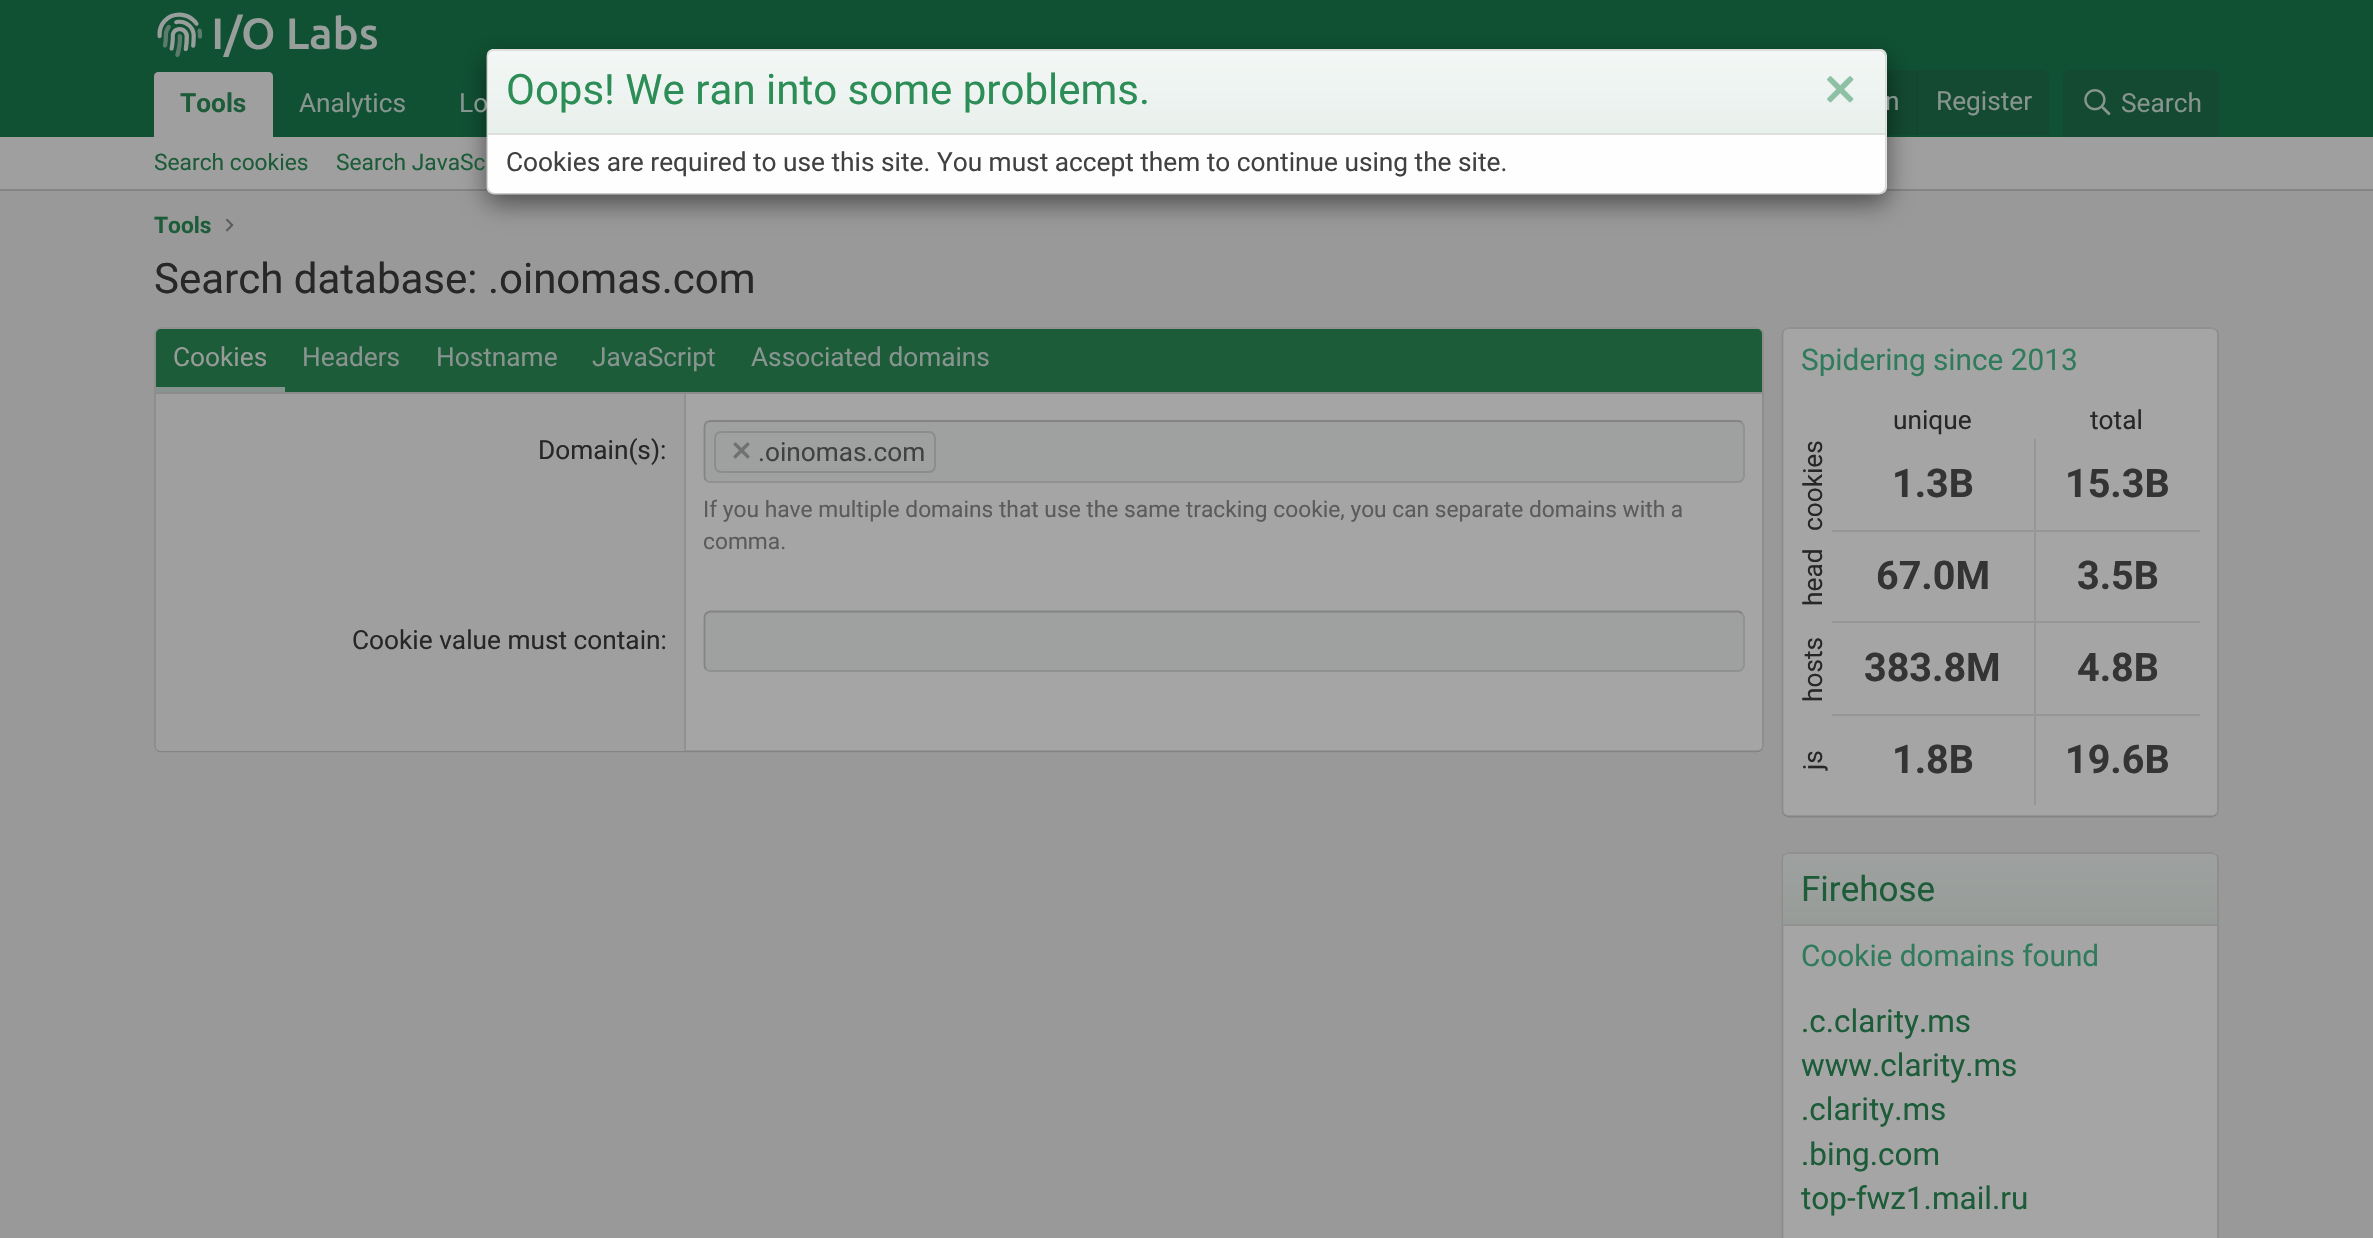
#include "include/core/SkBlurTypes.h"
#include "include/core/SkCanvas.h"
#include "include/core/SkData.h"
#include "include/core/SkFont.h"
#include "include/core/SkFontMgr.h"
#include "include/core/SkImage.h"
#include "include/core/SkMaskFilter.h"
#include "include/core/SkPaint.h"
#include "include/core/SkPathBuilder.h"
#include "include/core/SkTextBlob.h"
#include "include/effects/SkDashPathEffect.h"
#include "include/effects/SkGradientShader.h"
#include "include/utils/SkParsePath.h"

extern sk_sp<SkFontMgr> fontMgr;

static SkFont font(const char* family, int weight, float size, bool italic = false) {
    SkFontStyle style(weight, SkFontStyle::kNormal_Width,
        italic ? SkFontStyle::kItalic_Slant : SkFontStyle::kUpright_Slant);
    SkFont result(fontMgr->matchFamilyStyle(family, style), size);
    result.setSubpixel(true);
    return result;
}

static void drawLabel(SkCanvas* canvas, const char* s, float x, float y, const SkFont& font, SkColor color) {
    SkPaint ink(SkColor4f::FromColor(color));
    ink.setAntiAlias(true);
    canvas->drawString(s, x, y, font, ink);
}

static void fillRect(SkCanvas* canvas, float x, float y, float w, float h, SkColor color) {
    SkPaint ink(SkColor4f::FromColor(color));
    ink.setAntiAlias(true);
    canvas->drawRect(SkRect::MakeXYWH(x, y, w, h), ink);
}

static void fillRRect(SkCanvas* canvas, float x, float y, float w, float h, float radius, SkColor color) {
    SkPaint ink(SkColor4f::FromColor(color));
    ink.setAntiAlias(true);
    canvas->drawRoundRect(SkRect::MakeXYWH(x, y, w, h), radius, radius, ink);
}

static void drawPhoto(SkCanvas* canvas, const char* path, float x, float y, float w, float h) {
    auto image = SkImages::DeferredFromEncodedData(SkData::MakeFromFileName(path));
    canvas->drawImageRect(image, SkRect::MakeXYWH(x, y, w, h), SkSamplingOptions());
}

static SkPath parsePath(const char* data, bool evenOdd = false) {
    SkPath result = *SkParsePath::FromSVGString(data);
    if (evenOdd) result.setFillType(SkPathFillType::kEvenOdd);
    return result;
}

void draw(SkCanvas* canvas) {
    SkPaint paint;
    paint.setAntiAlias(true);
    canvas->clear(0xFF999999);
    fillRect(canvas, 0, 0, 2373, 137, 0xFF105133);
    paint.setColor(0xFF134A31);
    canvas->drawPath(parsePath("M1818 70H2042C2046 70 2049 73 2049 77V135H1811V77C1811 73 1814 70 1818 70Z"), paint);
    fillRect(canvas, 1916, 70, 2, 65, 0xFF16452F);
    fillRect(canvas, 0, 137, 2373, 52, 0xFF9F9F9F);
    fillRect(canvas, 0, 189, 2373, 2, 0xFF848484);
    paint.setColor(0x80000000);
    paint.setMaskFilter(SkMaskFilter::MakeBlur(kNormal_SkBlurStyle, 13));
    canvas->drawRoundRect(SkRect::MakeXYWH(487, 58, 1400, 145), 7, 7, paint);
    paint.setMaskFilter(nullptr);
    SkFont font1 = font("Roboto", 400, 26.25f);
    drawLabel(canvas, "n", 1885, 110, font1, 0xFF87948F);
    fillRRect(canvas, 487, 49, 1400, 145, 7, 0xFFECECEC);
    paint.setStroke(true);
    paint.setStrokeWidth(1.8f);
    paint.setColor(0xFFDFDFDF);
    canvas->drawPath(parsePath("M489 51.5C490.5 50.5 492 50 493.5 50H1879.5C1881 50 1882.5 50.5 1884 51.5"), paint);
    paint.setColor(0xFFD8D8D8);
    canvas->drawPath(parsePath("M1884 51.5C1885 53 1885.5 54.5 1885.5 56V187C1885.5 189 1885 190.5 1884 191.5"), paint);
    paint.setColor(0xFFCBCBCB);
    canvas->drawPath(parsePath("M1884 191.5C1882.5 192.5 1881 193.5 1879.5 193.5H493.5C492 193.5 490.5 192.5 489 191.5"), paint);
    drawLabel(canvas, "Lo", 459, 112, font1, 0xFF87948F);
    paint.setColor(0xFFD8D8D8);
    canvas->drawPath(parsePath("M489 191.5C488 190.5 487.5 189 487.5 187V56C487.5 54.5 488 53 489 51.5"), paint);
    paint.setStroke(false);
    {
        const SkColor colors[] = {0xFFE8F0EC, 0xFFF3F7F5};
        const float stops[] = {0, 1};
        const SkPoint ends[] = {{1187, 133}, {1187, 51}};
        paint.setShader(SkGradientShader::MakeLinear(ends, colors, stops, 2, SkTileMode::kClamp));
        paint.setAlpha(255);
    }
    canvas->drawPath(parsePath("M495 51H1878C1882 51 1885 54 1885 58V133H488V58C488 54 491 51 495 51Z"), paint);
    fillRect(canvas, 488, 133, 1397, 2, 0xFFDFDFDF);
    SkFont font2 = font("Roboto", 400, 42);
    drawLabel(canvas, "Oops! We ran into some problems.", 506, 104, font2, 0xFF2D8D57);
    drawPhoto(canvas, "assets/img1.png", 1827, 76, 27, 27);
    paint.setShader(nullptr);
    paint.setColor(0xFFFEFEFE);
    canvas->drawPath(parsePath("M488 135H1885V186C1885 190 1882 193 1878 193H495C491 193 488 190 488 186Z"), paint);
    drawLabel(canvas, "Cookies are required to use this site. You must accept them to continue using the site.", 506, 171, font1, 0xFF414141);
    drawPhoto(canvas, "assets/img2.png", 157, 12, 220, 45);
    paint.setColor(0xFF9F9F9F);
    canvas->drawPath(parsePath("M158 72H269C271 72 273 74 273 76V137H154V76C154 74 156 72 158 72Z"), paint);
    SkFont font3 = font("Roboto", 700, 26.25f);
    drawLabel(canvas, "Tools", 180, 112, font3, 0xFF1D5C39);
    drawLabel(canvas, "Analytics", 299, 112, font1, 0xFF87948F);
    drawLabel(canvas, "Register", 1936, 110, font1, 0xFF87948F);
    paint.setColor(0xFF134A31);
    canvas->drawPath(parsePath("M2070 70H2212C2216 70 2219 73 2219 77V137H2063V77C2063 73 2066 70 2070 70Z"), paint);
    drawPhoto(canvas, "assets/img3.png", 2084, 89, 27, 27);
    drawLabel(canvas, "Search", 2121, 112, font1, 0xFF87948F);
    SkFont font4 = font("Roboto", 400, 22.75f);
    drawLabel(canvas, "Search cookies", 154, 170, font4, 0xFF1D5C39);
    drawLabel(canvas, "Search JavaSc", 336, 170, font4, 0xFF1D5C39);
    SkFont font5 = font("Roboto", 700, 22.75f);
    drawLabel(canvas, "Tools", 154, 233, font5, 0xFF1D5C39);
    drawPhoto(canvas, "assets/img4.png", 225, 218, 9, 14);
    drawLabel(canvas, "Search database: .oinomas.com", 154, 293, font2, 0xFF272727);
    fillRRect(canvas, 154, 327, 1610, 426, 7, 0xFFA5A5A5);
    paint.setStroke(true);
    paint.setColor(0xFF919191);
    canvas->drawPath(parsePath("M156.5 330C158 329 159.5 328 161 328H1757C1758.5 328 1760 329 1761.5 330"), paint);
    paint.setColor(0xFF8C8C8C);
    canvas->drawPath(parsePath("M1761.5 330C1762.5 331 1763 332.5 1763 334V745.5C1763 747 1762.5 748.5 1761.5 750"), paint);
    paint.setColor(0xFF848484);
    canvas->drawPath(parsePath("M1761.5 750C1760 751 1758.5 751.5 1757 751.5H161C159.5 751.5 158 751 156.5 750"), paint);
    paint.setColor(0xFF8C8C8C);
    canvas->drawPath(parsePath("M156.5 750C155.5 748.5 155 747 155 745.5V334C155 332.5 155.5 331 156.5 330"), paint);
    paint.setStroke(false);
    paint.setColor(0xFF1D5C39);
    canvas->drawPath(parsePath("M161 329H1757C1760 329 1762 331 1762 334V394H156V334C156 331 158 329 161 329Z"), paint);
    fillRect(canvas, 156, 392, 1606, 2, 0xFF8C8C8C);
    fillRect(canvas, 156, 387, 129, 5, 0xFF87948F);
    drawLabel(canvas, "Cookies", 173, 366, font1, 0xFF979C99);
    drawLabel(canvas, "Headers", 302, 366, font1, 0xFF87948F);
    drawLabel(canvas, "Hostname", 436, 366, font1, 0xFF87948F);
    drawLabel(canvas, "JavaScript", 592, 366, font1, 0xFF87948F);
    drawLabel(canvas, "Associated domains", 751, 366, font1, 0xFF87948F);
    fillRect(canvas, 156, 394, 528, 304, 0xFF9F9F9F);
    fillRect(canvas, 684, 394, 2, 304, 0xFF919191);
    drawLabel(canvas, "Domain(s):", 538, 459, font1, 0xFF272727);
    fillRRect(canvas, 704, 420, 1041, 63, 7, 0xFF9FA1A1);
    paint.setStroke(true);
    paint.setColor(0xFF919191);
    canvas->drawPath(parsePath("M1742 422.5C1743 424 1744 425.5 1744 427V476C1744 477.5 1743 479 1742 480.5C1741 481.5 1739.5 482 1738 482H710.5C709 482 707.5 481.5 706 480.5"), paint);
    paint.setColor(0xFF848484);
    canvas->drawPath(parsePath("M706 480.5C705 479 704.5 477.5 704.5 476V427C704.5 425.5 705 424 706 422.5C707.5 421.5 709 421 710.5 421H1738C1739.5 421 1741 421.5 1742 422.5"), paint);
    paint.setStrokeWidth(2);
    paint.setColor(0xFF8C8C8C);
    canvas->drawRoundRect(SkRect::MakeXYWH(715, 432, 220, 40), 6, 6, paint);
    drawPhoto(canvas, "assets/img5.png", 733, 442, 17, 17);
    drawLabel(canvas, ".oinomas.com", 758, 461, font1, 0xFF414141);
    drawLabel(canvas, "If you have multiple domains that use the same tracking cookie, you can separate domains with a", 703, 517, font4, 0xFF5B5B5B);
    drawLabel(canvas, "comma.", 703, 549, font4, 0xFF5B5B5B);
    drawLabel(canvas, "Cookie value must contain:", 352, 649, font1, 0xFF272727);
    fillRRect(canvas, 704, 611, 1041, 61, 7, 0xFF9FA1A1);
    paint.setStrokeWidth(1.8f);
    paint.setColor(0xFF919191);
    canvas->drawPath(parsePath("M1742 613.5C1743 614.5 1744 616 1744 618V665C1744 666.5 1743 668 1742 669.5C1741 670.5 1739.5 671 1738 671H710.5C709 671 707.5 670.5 706 669.5"), paint);
    paint.setColor(0xFF848484);
    canvas->drawPath(parsePath("M706 669.5C705 668 704.5 666.5 704.5 665V618C704.5 616 705 614.5 706 613.5C707.5 612.5 709 611.5 710.5 611.5H1738C1739.5 611.5 1741 612.5 1742 613.5"), paint);
    paint.setStroke(false);
    paint.setColor(0xFF9F9F9F);
    canvas->drawPath(parsePath("M156 698H686V751H161C158 751 156 749 156 746Z"), paint);
    fillRect(canvas, 684, 698, 2, 53, 0xFF919191);
    fillRRect(canvas, 1782, 327, 437, 490, 7, 0xFFA5A5A5);
    paint.setStroke(true);
    paint.setColor(0xFF919191);
    canvas->drawPath(parsePath("M1784 330C1785.5 329 1787 328 1788.5 328H2212C2213.5 328 2215 329 2216.5 330"), paint);
    paint.setColor(0xFF8C8C8C);
    canvas->drawPath(parsePath("M2216.5 330C2217.5 331 2218 332.5 2218 334V810C2218 812 2217.5 813.5 2216.5 814.5"), paint);
    paint.setColor(0xFF848484);
    canvas->drawPath(parsePath("M2216.5 814.5C2215 815.5 2213.5 816.5 2212 816.5H1788.5C1787 816.5 1785.5 815.5 1784 814.5"), paint);
    paint.setColor(0xFF8C8C8C);
    canvas->drawPath(parsePath("M1784 814.5C1783 813.5 1782.5 812 1782.5 810V334C1782.5 332.5 1783 331 1784 330"), paint);
    SkFont font6 = font("Roboto", 400, 29.75f);
    drawLabel(canvas, "Spidering since 2013", 1801, 370, font6, 0xFF307B5C);
    drawLabel(canvas, "unique", 1893, 429, font1, 0xFF272727);
    drawLabel(canvas, "total", 2090, 429, font1, 0xFF272727);
    canvas->save();
    canvas->rotate(-90, 1822, 531);
    drawLabel(canvas, "cookies", 1822, 531, font1, 0xFF272727);
    canvas->restore();
    fillRect(canvas, 1832, 530, 368, 2, 0xFF969696);
    SkFont font7 = font("Roboto", 700, 39.5f);
    drawLabel(canvas, "1.3B", 1892, 497, font7, 0xFF343434);
    fillRect(canvas, 2034, 439, 2, 93, 0xFF969696);
    drawLabel(canvas, "15.3B", 2065, 497, font7, 0xFF343434);
    canvas->save();
    canvas->rotate(-90, 1822, 606);
    drawLabel(canvas, "head", 1822, 606, font1, 0xFF272727);
    canvas->restore();
    fillRect(canvas, 1832, 621, 368, 2, 0xFF969696);
    drawLabel(canvas, "67.0M", 1876, 589, font7, 0xFF343434);
    fillRect(canvas, 2034, 532, 2, 91, 0xFF969696);
    drawLabel(canvas, "3.5B", 2077, 589, font7, 0xFF343434);
    canvas->save();
    canvas->rotate(-90, 1822, 702);
    drawLabel(canvas, "hosts", 1822, 702, font1, 0xFF272727);
    canvas->restore();
    fillRect(canvas, 1832, 714, 368, 2, 0xFF969696);
    drawLabel(canvas, "383.8M", 1864, 681, font7, 0xFF343434);
    fillRect(canvas, 2034, 623, 2, 182, 0xFF969696);
    drawLabel(canvas, "4.8B", 2077, 681, font7, 0xFF343434);
    canvas->save();
    canvas->rotate(-90, 1822, 770);
    drawLabel(canvas, "js", 1822, 770, font1, 0xFF272727);
    canvas->restore();
    drawLabel(canvas, "1.8B", 1892, 773, font7, 0xFF343434);
    drawLabel(canvas, "19.6B", 2065, 773, font7, 0xFF343434);
    fillRRect(canvas, 1782, 852, 437, 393, 7, 0xFFA5A5A5);
    paint.setColor(0xFF919191);
    canvas->drawPath(parsePath("M1784 855C1785.5 854 1787 853 1788.5 853H2212C2213.5 853 2215 854 2216.5 855"), paint);
    paint.setColor(0xFF8C8C8C);
    canvas->drawPath(parsePath("M2216.5 855C2217.5 856 2218 857.5 2218 859V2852.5C2218 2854 2217.5 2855.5 2216.5 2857"), paint);
    canvas->drawPath(parsePath("M1784 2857C1783 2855.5 1782.5 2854 1782.5 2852.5V859C1782.5 857.5 1783 856 1784 855"), paint);
    paint.setStroke(false);
    {
        const SkColor colors[] = {0xFF979C99, 0xFF9EA19F};
        const float stops[] = {0, 1};
        const SkPoint ends[] = {{2000, 924}, {2000, 854}};
        paint.setShader(SkGradientShader::MakeLinear(ends, colors, stops, 2, SkTileMode::kClamp));
        paint.setAlpha(255);
    }
    canvas->drawPath(parsePath("M1788 854H2212C2215 854 2217 856 2217 859V924H1783V859C1783 856 1785 854 1788 854Z"), paint);
    fillRect(canvas, 1783, 924, 434, 2, 0xFF919191);
    SkFont font8 = font("Roboto", 400, 35);
    drawLabel(canvas, "Firehose", 1801, 901, font8, 0xFF1D5C39);
    drawLabel(canvas, "Cookie domains found", 1801, 966, font6, 0xFF307B5C);
    SkFont font9 = font("Roboto", 400, 31.5f);
    drawLabel(canvas, ".c.clarity.ms", 1801, 1032, font9, 0xFF1D5C39);
    drawLabel(canvas, "www.clarity.ms", 1801, 1076, font9, 0xFF1D5C39);
    drawLabel(canvas, ".clarity.ms", 1801, 1120, font9, 0xFF1D5C39);
    drawLabel(canvas, ".bing.com", 1801, 1165, font9, 0xFF1D5C39);
    drawLabel(canvas, "top-fwz1.mail.ru", 1801, 1209, font9, 0xFF1D5C39);
}
